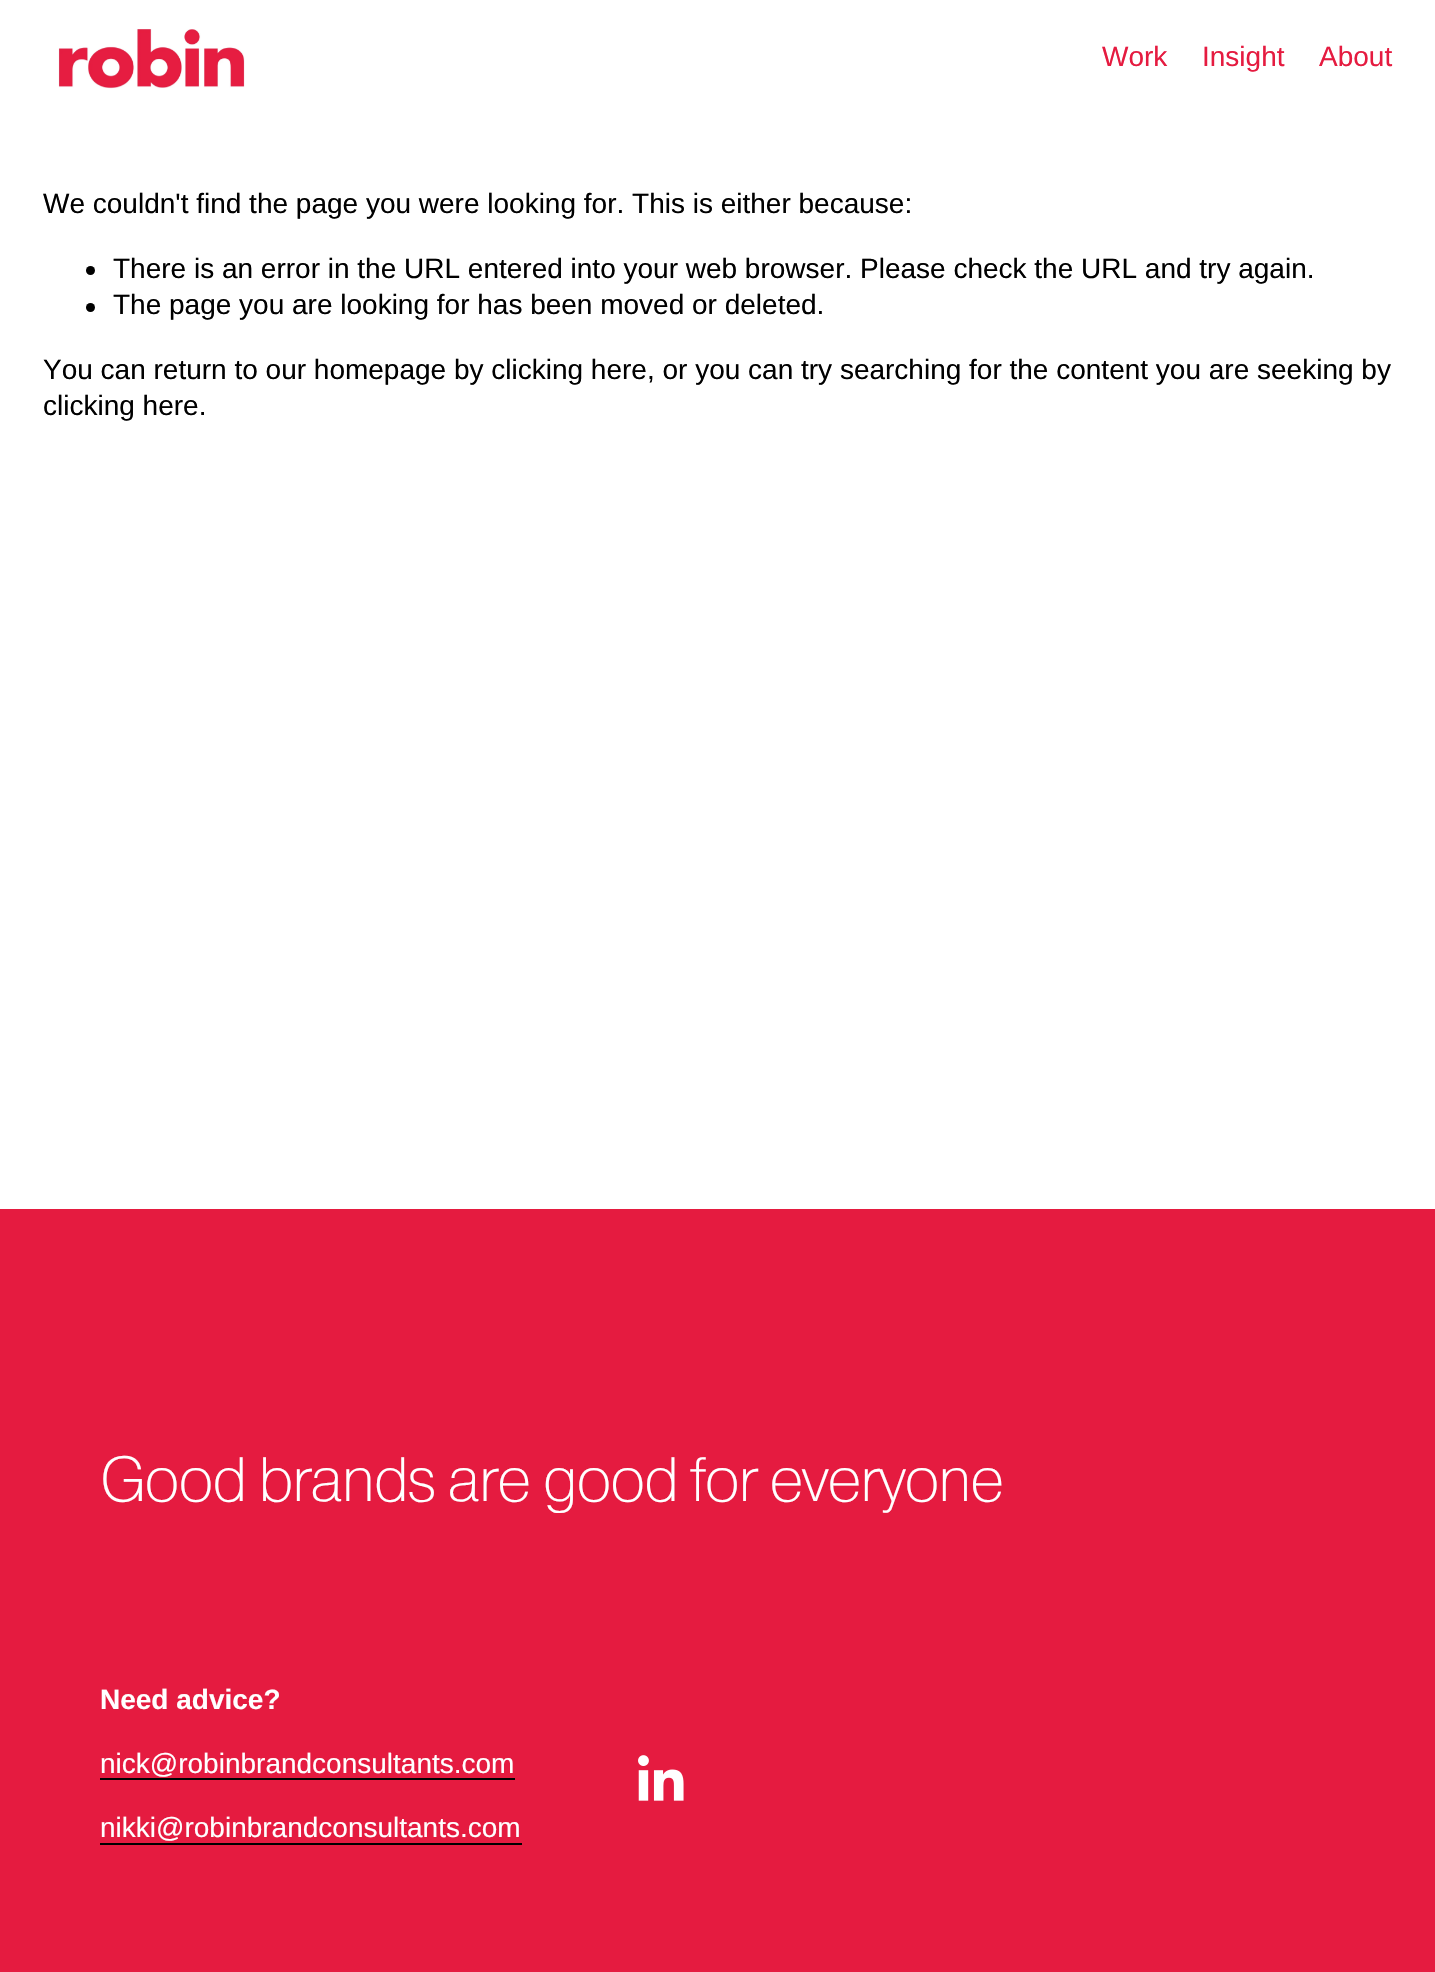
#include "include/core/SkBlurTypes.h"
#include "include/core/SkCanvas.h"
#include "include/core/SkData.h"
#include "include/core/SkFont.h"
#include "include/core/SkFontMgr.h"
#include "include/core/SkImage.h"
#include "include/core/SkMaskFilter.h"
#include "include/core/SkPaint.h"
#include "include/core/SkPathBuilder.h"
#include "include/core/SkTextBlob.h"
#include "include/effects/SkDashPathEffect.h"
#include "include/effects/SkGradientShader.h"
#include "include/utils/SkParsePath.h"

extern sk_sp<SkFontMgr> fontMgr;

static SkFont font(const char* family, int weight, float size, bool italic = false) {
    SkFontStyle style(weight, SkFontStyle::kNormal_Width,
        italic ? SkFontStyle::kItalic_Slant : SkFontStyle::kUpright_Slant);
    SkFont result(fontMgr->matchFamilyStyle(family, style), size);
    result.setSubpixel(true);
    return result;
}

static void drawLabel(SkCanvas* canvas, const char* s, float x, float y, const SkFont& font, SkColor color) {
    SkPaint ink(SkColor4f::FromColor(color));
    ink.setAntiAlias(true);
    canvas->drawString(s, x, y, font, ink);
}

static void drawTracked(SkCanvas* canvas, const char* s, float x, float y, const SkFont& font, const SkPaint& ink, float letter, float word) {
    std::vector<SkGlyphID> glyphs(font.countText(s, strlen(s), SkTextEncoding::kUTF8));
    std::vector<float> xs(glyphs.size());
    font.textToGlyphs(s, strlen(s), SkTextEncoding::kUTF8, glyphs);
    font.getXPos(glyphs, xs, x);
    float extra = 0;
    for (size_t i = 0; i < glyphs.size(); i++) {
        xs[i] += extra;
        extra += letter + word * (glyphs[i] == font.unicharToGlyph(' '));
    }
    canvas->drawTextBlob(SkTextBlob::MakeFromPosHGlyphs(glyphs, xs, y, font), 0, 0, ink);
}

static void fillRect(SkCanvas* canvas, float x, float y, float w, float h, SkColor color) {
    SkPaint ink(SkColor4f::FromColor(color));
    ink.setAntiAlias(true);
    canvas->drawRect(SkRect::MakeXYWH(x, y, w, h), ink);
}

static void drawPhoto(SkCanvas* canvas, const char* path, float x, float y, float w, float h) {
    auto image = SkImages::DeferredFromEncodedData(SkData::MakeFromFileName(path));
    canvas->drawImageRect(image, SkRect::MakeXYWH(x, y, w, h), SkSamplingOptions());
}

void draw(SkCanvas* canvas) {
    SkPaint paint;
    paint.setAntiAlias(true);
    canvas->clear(0xFFFFFFFF);
    drawPhoto(canvas, "assets/img1.png", 58, 29, 187, 60);
    SkFont font1 = font("Liberation Sans", 400, 28);
    drawLabel(canvas, "Work", 1102, 66, font1, 0xFFE51B40);
    drawLabel(canvas, "Insight", 1202, 66, font1, 0xFFE51B40);
    drawLabel(canvas, "About", 1319, 66, font1, 0xFFE51B40);
    drawLabel(canvas, "We couldn't find the page you were looking for. This is either because:", 43, 213, font1, 0xFF000000);
    paint.setColor(0xFF000000);
    canvas->drawCircle(90.5f, 270.5f, 4.5f, paint);
    drawLabel(canvas, "There is an error in the URL entered into your web browser. Please check the URL and try again.", 113, 278, font1, 0xFF000000);
    canvas->drawCircle(90.5f, 307.5f, 4.5f, paint);
    drawLabel(canvas, "The page you are looking for has been moved or deleted.", 113, 314, font1, 0xFF000000);
    drawLabel(canvas, "You can return to our homepage by clicking here, or you can try searching for the content you are seeking by", 43, 379, font1, 0xFF000000);
    drawLabel(canvas, "clicking here.", 43, 415, font1, 0xFF000000);
    fillRect(canvas, 0, 1209, 1435, 763, 0xFFE51B40);
    SkFont font2 = font("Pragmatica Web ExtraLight", 200, 62.5f);
    paint.setColor(0xFFFFFFFF);
    drawTracked(canvas, "Good brands are good for everyone", 100, 1501, font2, paint, -1.9f, 0);
    SkFont font3 = font("Liberation Sans", 700, 28);
    drawLabel(canvas, "Need advice?", 100, 1709, font3, 0xFFFFFFFF);
    drawLabel(canvas, "nick@robinbrandconsultants.com", 100, 1773, font1, 0xFFFFFFFF);
    fillRect(canvas, 100, 1778, 415, 2, 0xFF000000);
    drawLabel(canvas, "nikki@robinbrandconsultants.com", 100, 1837, font1, 0xFFFFFFFF);
    fillRect(canvas, 100, 1843, 422, 2, 0xFF000000);
    drawPhoto(canvas, "assets/img2.png", 638, 1755, 46, 46);
}
